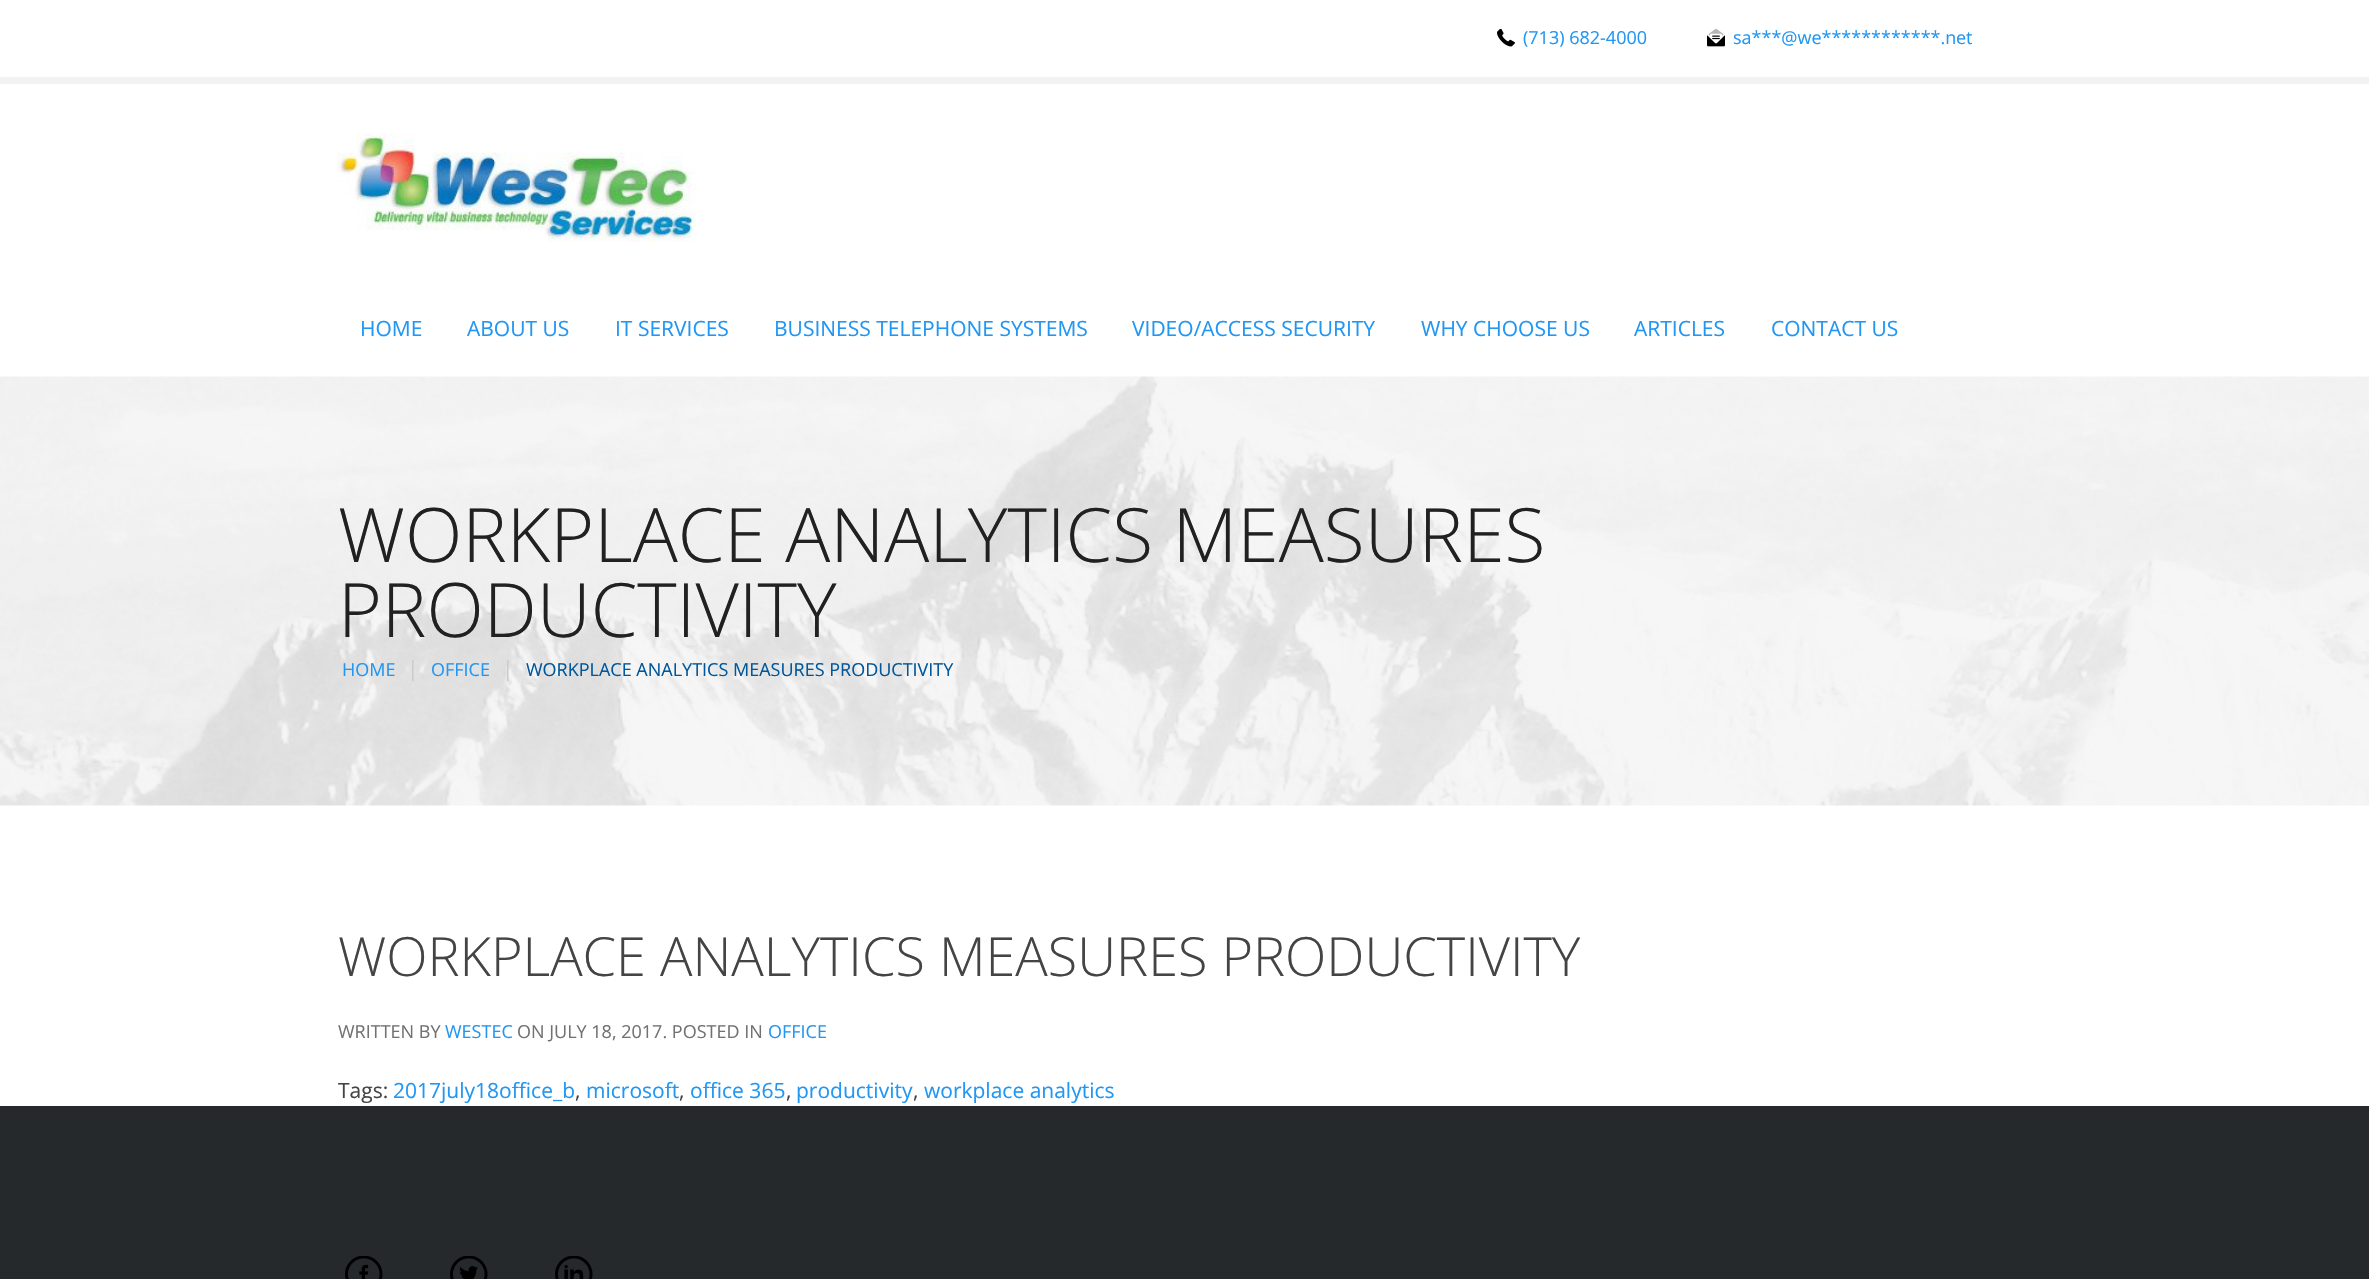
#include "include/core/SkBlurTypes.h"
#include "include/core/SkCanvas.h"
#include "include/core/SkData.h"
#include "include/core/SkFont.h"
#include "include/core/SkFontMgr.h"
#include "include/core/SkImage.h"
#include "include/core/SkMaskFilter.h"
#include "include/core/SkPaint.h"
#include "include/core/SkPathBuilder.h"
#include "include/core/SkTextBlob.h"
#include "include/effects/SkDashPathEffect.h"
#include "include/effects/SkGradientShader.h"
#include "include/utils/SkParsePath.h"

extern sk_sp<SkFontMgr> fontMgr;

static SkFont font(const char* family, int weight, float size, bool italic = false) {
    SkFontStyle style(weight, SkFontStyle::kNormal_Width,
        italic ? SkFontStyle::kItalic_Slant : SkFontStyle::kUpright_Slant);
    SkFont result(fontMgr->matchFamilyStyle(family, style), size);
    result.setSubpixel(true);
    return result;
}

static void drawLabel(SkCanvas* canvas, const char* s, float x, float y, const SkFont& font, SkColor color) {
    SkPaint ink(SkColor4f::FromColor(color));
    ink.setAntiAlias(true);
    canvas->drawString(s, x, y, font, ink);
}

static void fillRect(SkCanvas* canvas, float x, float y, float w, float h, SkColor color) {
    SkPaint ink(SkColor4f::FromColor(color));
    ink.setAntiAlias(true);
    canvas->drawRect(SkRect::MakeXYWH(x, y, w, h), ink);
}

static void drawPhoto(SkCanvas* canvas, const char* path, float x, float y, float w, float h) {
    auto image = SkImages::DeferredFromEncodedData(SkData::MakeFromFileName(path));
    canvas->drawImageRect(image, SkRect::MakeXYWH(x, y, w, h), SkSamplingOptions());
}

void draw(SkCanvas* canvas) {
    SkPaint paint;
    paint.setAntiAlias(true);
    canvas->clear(0xFFFFFFFF);
    fillRect(canvas, 0, 77, 2369, 7, 0xFFF2F2F2);
    drawPhoto(canvas, "assets/img1.png", 1497, 29, 18, 18);
    SkFont font1 = font("Open Sans", 400, 18);
    drawLabel(canvas, "(713) 682-4000", 1523, 44, font1, 0xFF2196F3);
    drawPhoto(canvas, "assets/img2.png", 1707, 29, 18, 18);
    drawLabel(canvas, "sa***@we************.n", 1733, 44, font1, 0xFF2196F3);
    drawLabel(canvas, "et", 1956, 44, font1, 0xFF2196F3);
    drawPhoto(canvas, "assets/img3.png", 337, 133, 359, 109);
    SkFont font2 = font("Open Sans", 400, 21);
    drawLabel(canvas, "HOME", 360, 336, font2, 0xFF2196F3);
    drawLabel(canvas, "ABOUT US", 467, 336, font2, 0xFF2196F3);
    drawLabel(canvas, "IT SERVICES", 615, 336, font2, 0xFF2196F3);
    drawLabel(canvas, "BUSINESS TELEPHONE SYSTEMS", 774, 336, font2, 0xFF2196F3);
    drawLabel(canvas, "VIDEO/ACCESS SECURITY", 1132, 336, font2, 0xFF2196F3);
    drawLabel(canvas, "WHY CHOOSE US", 1421, 336, font2, 0xFF2196F3);
    drawLabel(canvas, "ARTICLES", 1634, 336, font2, 0xFF2196F3);
    drawLabel(canvas, "CONTACT US", 1771, 336, font2, 0xFF2196F3);
    drawPhoto(canvas, "assets/img4.png", 0, 376, 2369, 430);
    SkFont font3 = font("Open Sans", 300, 75);
    drawLabel(canvas, "WORKPLACE ANALYTICS MEASURES", 338, 562, font3, 0xFF212121);
    drawLabel(canvas, "PRODUCTIVITY", 338, 637, font3, 0xFF212121);
    drawLabel(canvas, "HOME", 342, 676, font1, 0xFF2196F3);
    drawLabel(canvas, "|", 407, 676, font2, 0xFFCCCCCC);
    drawLabel(canvas, "OFFICE", 431, 676, font1, 0xFF2196F3);
    drawLabel(canvas, "|", 502, 676, font2, 0xFFCCCCCC);
    drawLabel(canvas, "WORKPLACE ANALYTICS MEASURES PRODUCTIVITY", 526, 676, font1, 0xFF01579B);
    SkFont font4 = font("Open Sans", 300, 54);
    drawLabel(canvas, "WORKPLACE ANALYTICS MEASURES PRODUCTIVITY", 338, 976, font4, 0xFF444444);
    drawLabel(canvas, "WRITTEN BY", 338, 1038, font1, 0xFF727272);
    drawLabel(canvas, "WESTEC", 445, 1038, font1, 0xFF2196F3);
    drawLabel(canvas, "ON JULY 18, 2017. POSTED IN", 517, 1038, font1, 0xFF727272);
    drawLabel(canvas, "OFFICE", 768, 1038, font1, 0xFF2196F3);
    drawLabel(canvas, "Tags:", 338, 1098, font2, 0xFF444444);
    drawLabel(canvas, "2017july18office_b", 393, 1098, font2, 0xFF2196F3);
    drawLabel(canvas, ",", 575, 1098, font2, 0xFF444444);
    drawLabel(canvas, "microsoft", 586, 1098, font2, 0xFF2196F3);
    drawLabel(canvas, ",", 679, 1098, font2, 0xFF444444);
    drawLabel(canvas, "office 365", 690, 1098, font2, 0xFF2196F3);
    drawLabel(canvas, ",", 786, 1098, font2, 0xFF444444);
    drawLabel(canvas, "productivity", 796, 1098, font2, 0xFF2196F3);
    drawLabel(canvas, ",", 913, 1098, font2, 0xFF444444);
    drawLabel(canvas, "workplace analytics", 924, 1098, font2, 0xFF2196F3);
    fillRect(canvas, 0, 1106, 2369, 173, 0xFF25292C);
    drawPhoto(canvas, "assets/img5.png", 345, 1256, 38, 23);
    drawPhoto(canvas, "assets/img6.png", 450, 1256, 38, 23);
    drawPhoto(canvas, "assets/img7.png", 555, 1256, 38, 23);
}
